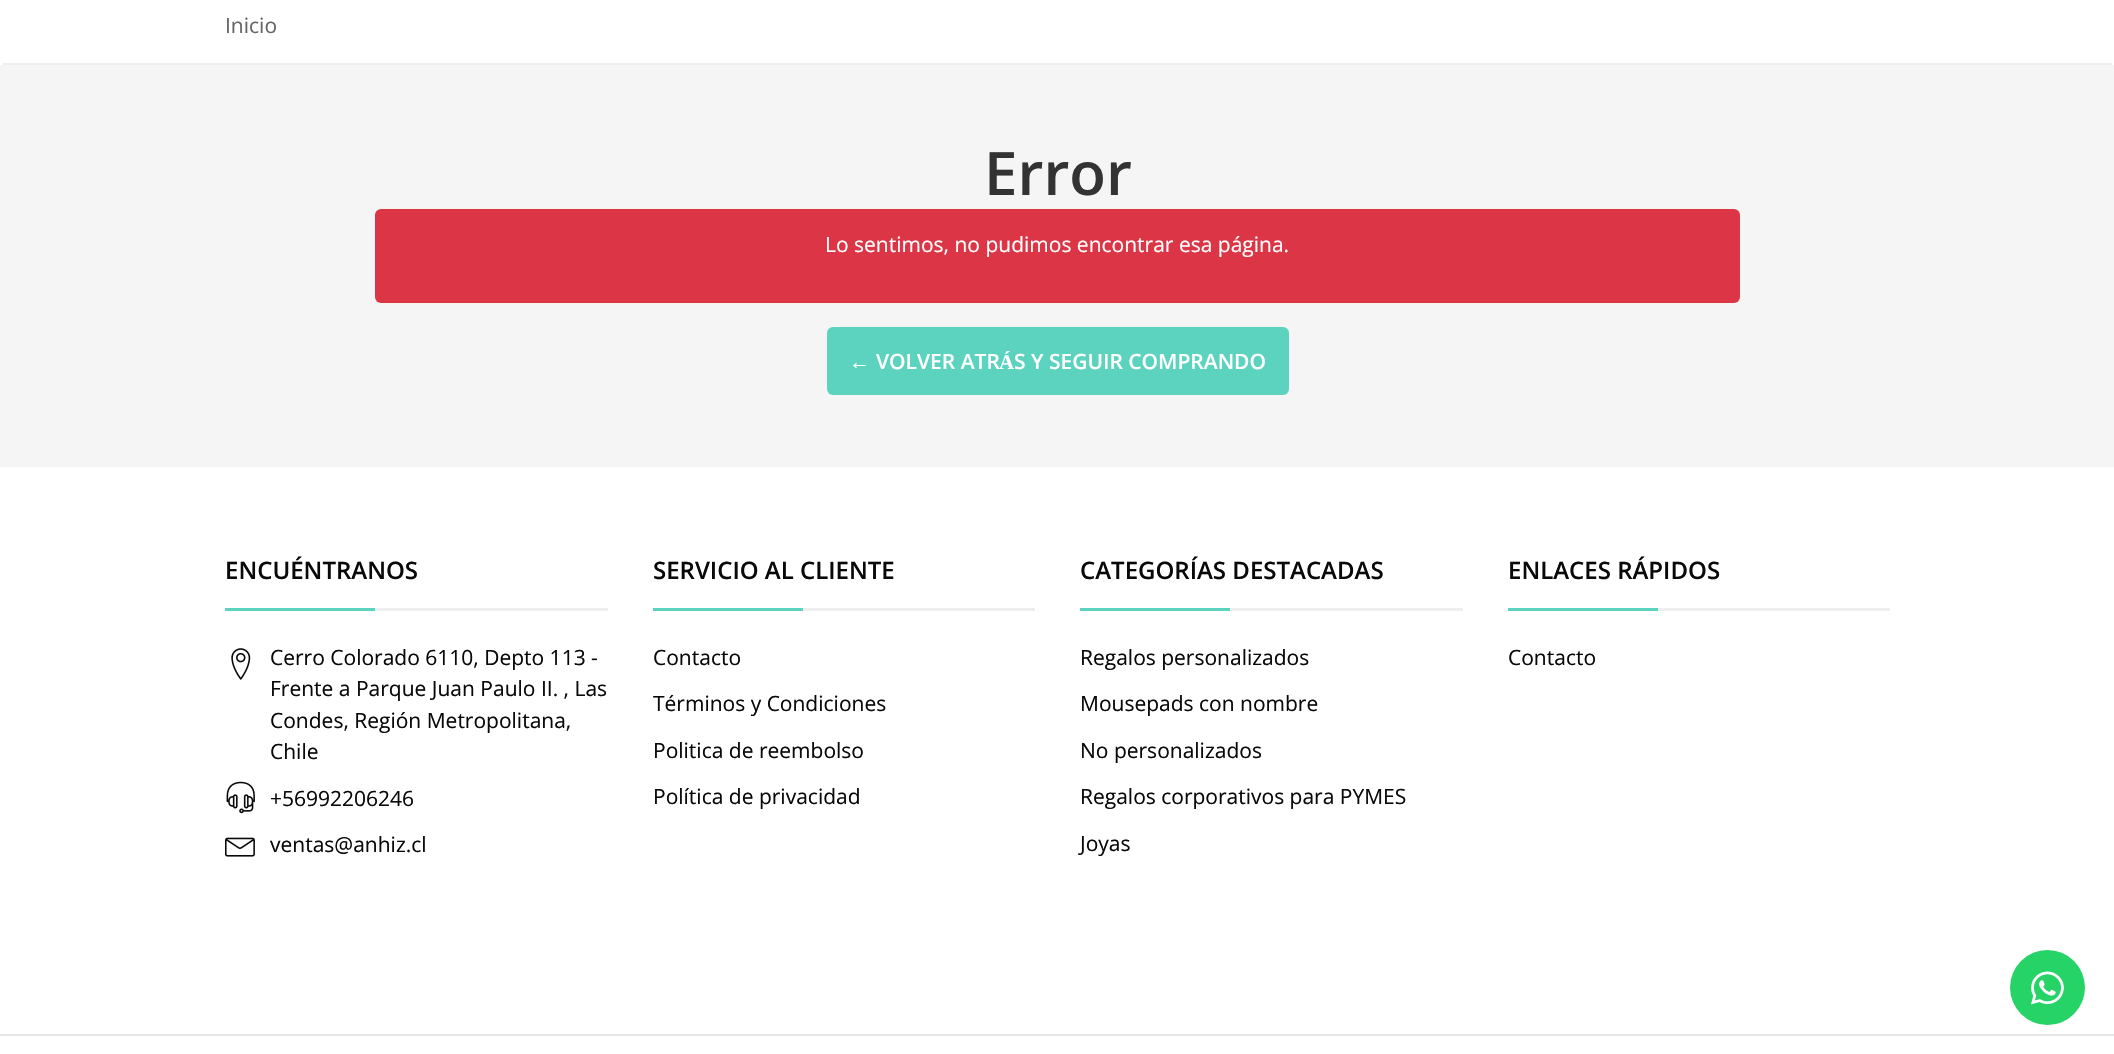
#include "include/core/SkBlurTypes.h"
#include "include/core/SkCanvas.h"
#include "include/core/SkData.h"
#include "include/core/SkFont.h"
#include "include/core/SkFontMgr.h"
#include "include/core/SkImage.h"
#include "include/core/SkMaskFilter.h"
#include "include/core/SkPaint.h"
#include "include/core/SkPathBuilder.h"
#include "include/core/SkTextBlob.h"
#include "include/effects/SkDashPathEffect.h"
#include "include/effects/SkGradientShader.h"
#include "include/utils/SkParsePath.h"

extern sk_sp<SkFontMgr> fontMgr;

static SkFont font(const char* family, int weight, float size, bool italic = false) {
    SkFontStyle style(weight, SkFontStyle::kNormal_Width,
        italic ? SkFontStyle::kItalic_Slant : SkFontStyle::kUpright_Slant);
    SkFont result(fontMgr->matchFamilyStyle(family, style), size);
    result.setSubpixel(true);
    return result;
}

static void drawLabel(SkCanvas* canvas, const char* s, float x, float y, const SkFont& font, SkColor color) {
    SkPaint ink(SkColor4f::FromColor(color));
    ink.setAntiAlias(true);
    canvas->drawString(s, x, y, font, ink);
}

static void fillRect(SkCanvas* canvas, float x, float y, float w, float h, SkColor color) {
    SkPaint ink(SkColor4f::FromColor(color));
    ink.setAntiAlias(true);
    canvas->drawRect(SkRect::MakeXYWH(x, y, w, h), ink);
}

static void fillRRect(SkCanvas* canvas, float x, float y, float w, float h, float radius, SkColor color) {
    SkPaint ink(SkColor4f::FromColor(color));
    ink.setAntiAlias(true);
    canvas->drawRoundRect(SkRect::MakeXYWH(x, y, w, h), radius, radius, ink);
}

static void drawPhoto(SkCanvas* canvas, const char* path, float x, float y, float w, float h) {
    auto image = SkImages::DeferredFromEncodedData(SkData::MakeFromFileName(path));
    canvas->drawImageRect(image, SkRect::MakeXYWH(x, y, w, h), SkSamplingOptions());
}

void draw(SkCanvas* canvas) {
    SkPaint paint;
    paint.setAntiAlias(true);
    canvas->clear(0xFFFFFFFF);
    fillRect(canvas, 3, 63, 2109, 2, 0xFFEEEEEE);
    SkFont font1 = font("Open Sans", 400, 21);
    drawLabel(canvas, "Inicio", 225, 33, font1, 0xFF666666);
    fillRect(canvas, 0, 65, 2114, 402, 0xFFF5F5F5);
    SkFont font2 = font("Open Sans", 600, 60);
    drawLabel(canvas, "Error", 984, 195, font2, 0xFF333333);
    fillRRect(canvas, 375, 209, 1365, 94, 6, 0xFFDC3545);
    drawLabel(canvas, "Lo sentimos, no pudimos encontrar esa página.", 825, 252, font1, 0xFFFFFFFF);
    fillRRect(canvas, 827, 327, 462, 68, 6, 0xFF5CD3BE);
    SkFont font3 = font("Liberation Serif", 700, 21);
    drawLabel(canvas, "←", 849, 369, font3, 0xFFFFFFFF);
    SkFont font4 = font("Open Sans", 600, 21);
    drawLabel(canvas, "VOLVER ATR", 876, 369, font4, 0xFFFFFFFF);
    drawLabel(canvas, "Á", 999, 369, font3, 0xFFFFFFFF);
    drawLabel(canvas, "S Y SEGUIR COMPRANDO", 1014, 369, font4, 0xFFFFFFFF);
    fillRect(canvas, 375, 608, 233, 3, 0xFFEEEEEE);
    SkFont font5 = font("Open Sans", 600, 24);
    drawLabel(canvas, "ENCUÉNTRANOS", 225, 579, font5, 0xFF090909);
    fillRect(canvas, 225, 608, 150, 3, 0xFF5CD3BE);
    drawPhoto(canvas, "assets/img1.png", 231, 648, 20, 32);
    drawLabel(canvas, "Cerro Colorado 6110, Depto 113 -", 270, 665, font1, 0xFF090909);
    drawLabel(canvas, "Frente a Parque Juan Paulo II. , Las", 270, 696, font1, 0xFF090909);
    drawLabel(canvas, "Condes, Región Metropolitana,", 270, 728, font1, 0xFF090909);
    drawLabel(canvas, "Chile", 270, 759, font1, 0xFF090909);
    drawPhoto(canvas, "assets/img2.png", 226, 781, 29, 33);
    drawLabel(canvas, "+56992206246", 270, 806, font1, 0xFF090909);
    drawPhoto(canvas, "assets/img3.png", 225, 837, 30, 20);
    drawLabel(canvas, "ventas@anhiz.cl", 270, 852, font1, 0xFF090909);
    fillRect(canvas, 803, 608, 232, 3, 0xFFEEEEEE);
    drawLabel(canvas, "SERVICIO AL CLIENTE", 653, 579, font5, 0xFF090909);
    fillRect(canvas, 653, 608, 150, 3, 0xFF5CD3BE);
    drawLabel(canvas, "Contacto", 653, 665, font1, 0xFF090909);
    drawLabel(canvas, "Términos y Condiciones", 653, 711, font1, 0xFF090909);
    drawLabel(canvas, "Politica de reembolso", 653, 758, font1, 0xFF090909);
    drawLabel(canvas, "Política de privacidad", 653, 804, font1, 0xFF090909);
    fillRect(canvas, 1230, 608, 233, 3, 0xFFEEEEEE);
    drawLabel(canvas, "CATEGORÍAS DESTACADAS", 1080, 579, font5, 0xFF090909);
    fillRect(canvas, 1080, 608, 150, 3, 0xFF5CD3BE);
    drawLabel(canvas, "Regalos personalizados", 1080, 665, font1, 0xFF090909);
    drawLabel(canvas, "Mousepads con nombre", 1080, 711, font1, 0xFF090909);
    drawLabel(canvas, "No personalizados", 1080, 758, font1, 0xFF090909);
    drawLabel(canvas, "Regalos corporativos para PYMES", 1080, 804, font1, 0xFF090909);
    drawLabel(canvas, "Joyas", 1080, 851, font1, 0xFF090909);
    fillRect(canvas, 1658, 608, 232, 3, 0xFFEEEEEE);
    drawLabel(canvas, "ENLACES RÁPIDOS", 1508, 579, font5, 0xFF090909);
    fillRect(canvas, 1508, 608, 150, 3, 0xFF5CD3BE);
    drawLabel(canvas, "Contacto", 1508, 665, font1, 0xFF090909);
    fillRect(canvas, 0, 1034, 2114, 2, 0xFFE6E6E6);
    paint.setColor(0xFF25D366);
    canvas->drawCircle(2047.5f, 987.5f, 37.5f, paint);
    drawPhoto(canvas, "assets/img4.png", 2031, 971, 33, 34);
}
